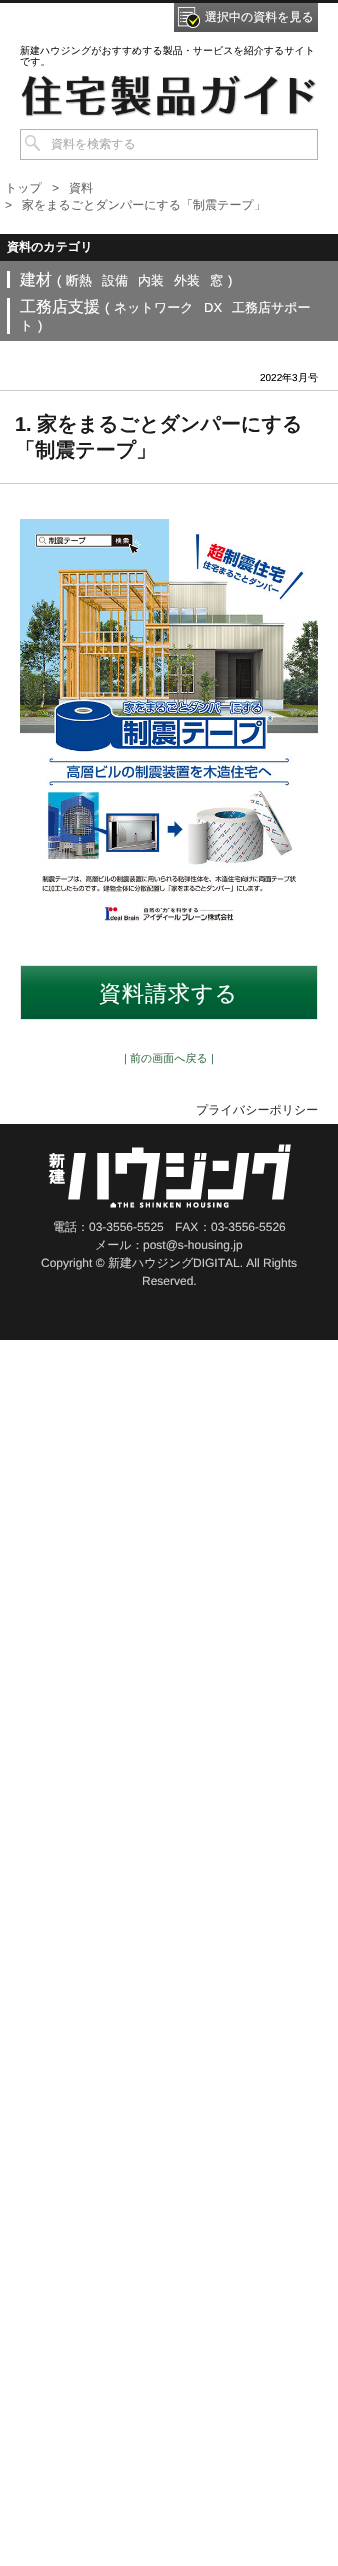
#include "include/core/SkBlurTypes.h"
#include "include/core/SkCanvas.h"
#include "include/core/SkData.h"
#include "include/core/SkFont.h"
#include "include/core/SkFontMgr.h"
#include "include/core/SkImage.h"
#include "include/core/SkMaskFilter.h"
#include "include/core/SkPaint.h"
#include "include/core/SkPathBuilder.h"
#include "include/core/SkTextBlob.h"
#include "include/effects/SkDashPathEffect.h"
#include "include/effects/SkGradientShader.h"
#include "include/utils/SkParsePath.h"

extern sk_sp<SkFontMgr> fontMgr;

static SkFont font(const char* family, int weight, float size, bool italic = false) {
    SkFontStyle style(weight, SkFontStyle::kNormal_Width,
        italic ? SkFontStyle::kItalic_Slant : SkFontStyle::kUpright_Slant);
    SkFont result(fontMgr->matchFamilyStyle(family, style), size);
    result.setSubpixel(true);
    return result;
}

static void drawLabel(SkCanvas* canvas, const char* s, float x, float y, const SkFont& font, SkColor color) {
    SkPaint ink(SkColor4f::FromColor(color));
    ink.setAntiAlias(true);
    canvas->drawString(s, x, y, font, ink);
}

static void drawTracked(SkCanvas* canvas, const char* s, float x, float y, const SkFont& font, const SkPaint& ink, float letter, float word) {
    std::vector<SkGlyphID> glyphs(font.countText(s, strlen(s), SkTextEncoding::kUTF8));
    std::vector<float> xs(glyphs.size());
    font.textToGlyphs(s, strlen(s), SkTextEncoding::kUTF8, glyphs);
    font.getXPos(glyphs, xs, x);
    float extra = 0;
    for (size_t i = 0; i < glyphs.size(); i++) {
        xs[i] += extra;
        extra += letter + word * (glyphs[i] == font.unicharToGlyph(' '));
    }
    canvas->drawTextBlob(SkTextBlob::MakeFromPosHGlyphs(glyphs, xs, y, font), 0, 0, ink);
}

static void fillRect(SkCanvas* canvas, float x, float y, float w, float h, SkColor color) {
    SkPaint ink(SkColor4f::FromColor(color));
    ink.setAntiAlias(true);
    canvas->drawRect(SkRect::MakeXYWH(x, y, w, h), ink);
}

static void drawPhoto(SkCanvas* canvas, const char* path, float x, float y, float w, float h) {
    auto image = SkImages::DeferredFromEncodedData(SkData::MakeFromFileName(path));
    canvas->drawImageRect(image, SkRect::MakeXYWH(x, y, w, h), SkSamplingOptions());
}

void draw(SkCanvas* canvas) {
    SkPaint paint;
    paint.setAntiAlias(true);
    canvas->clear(0xFFFFFFFF);
    fillRect(canvas, 0, 0, 338, 3, 0xFF1B1B1B);
    {
        const SkColor colors[] = {0xFF6D6D6D, 0xFF565656};
        const float stops[] = {0, 1};
        const SkPoint ends[] = {{246, 3}, {246, 32}};
        paint.setShader(SkGradientShader::MakeLinear(ends, colors, stops, 2, SkTileMode::kClamp));
        paint.setAlpha(255);
    }
    canvas->drawRect(SkRect::MakeXYWH(174, 3, 144, 29), paint);
    drawPhoto(canvas, "assets/img1.png", 178, 7, 22, 21);
    SkFont font1 = font("WenQuanYi Zen Hei", 500, 12);
    drawLabel(canvas, "選択中の資料を見る", 205, 21, font1, 0xFFFFFFFF);
    SkFont font2 = font("WenQuanYi Zen Hei", 500, 10);
    drawLabel(canvas, "新建ハウジングがおすすめする製品・サービスを紹介するサイト", 20, 54, font2, 0xFF1B1B1B);
    drawLabel(canvas, "です。", 20, 65, font2, 0xFF1B1B1B);
    drawPhoto(canvas, "assets/img2.png", 21, 75, 295, 42);
    paint.setStroke(true);
    paint.setStrokeWidth(1);
    paint.setShader(nullptr);
    paint.setColor(0xFFB3B3B3);
    canvas->drawRect(SkRect::MakeXYWH(20.5f, 129.5f, 297, 30), paint);
    drawPhoto(canvas, "assets/img3.png", 25, 135, 15, 16);
    drawLabel(canvas, "資料を検索する", 51, 148, font1, 0xFFAAAAAA);
    drawLabel(canvas, "トップ", 5, 192, font1, 0xFF666666);
    SkFont font3 = font("Liberation Sans", 400, 12);
    drawLabel(canvas, ">", 52, 192, font3, 0xFF666666);
    drawLabel(canvas, "資料", 69, 192, font1, 0xFF666666);
    drawLabel(canvas, ">", 5, 209, font3, 0xFF666666);
    drawLabel(canvas, "家をまるごとダンパーにする「制震テープ」", 22, 209, font1, 0xFF666666);
    fillRect(canvas, 0, 261, 338, 80, 0xFF777777);
    fillRect(canvas, 0, 234, 338, 27, 0xFF1B1B1B);
    SkFont font4 = font("WenQuanYi Zen Hei", 700, 12);
    drawLabel(canvas, "資料のカテゴリ", 7, 251, font4, 0xFFFFFFFF);
    fillRect(canvas, 7, 271, 3, 17, 0xFFFFFFFF);
    SkFont font5 = font("WenQuanYi Zen Hei", 500, 16);
    drawLabel(canvas, "建材", 20, 285, font5, 0xFFFFFFFF);
    SkFont font6 = font("Liberation Sans", 400, 13);
    drawLabel(canvas, "(", 57, 285, font6, 0xFFFFFFFF);
    SkFont font7 = font("WenQuanYi Zen Hei", 500, 13);
    drawLabel(canvas, "断熱", 66, 285, font7, 0xFFFFFFFF);
    drawLabel(canvas, "設備", 102, 285, font7, 0xFFFFFFFF);
    drawLabel(canvas, "内装", 138, 285, font7, 0xFFFFFFFF);
    drawLabel(canvas, "外装", 174, 285, font7, 0xFFFFFFFF);
    drawLabel(canvas, "窓", 210, 285, font7, 0xFFFFFFFF);
    drawLabel(canvas, ")", 228, 285, font6, 0xFFFFFFFF);
    fillRect(canvas, 7, 298, 3, 36, 0xFFFFFFFF);
    drawLabel(canvas, "工務店支援", 20, 312, font5, 0xFFFFFFFF);
    drawLabel(canvas, "(", 105, 312, font6, 0xFFFFFFFF);
    drawLabel(canvas, "ネットワーク", 114, 312, font7, 0xFFFFFFFF);
    drawLabel(canvas, "DX", 204, 312, font6, 0xFFFFFFFF);
    drawLabel(canvas, "工務店サポー", 232, 312, font7, 0xFFFFFFFF);
    drawLabel(canvas, "ト", 20, 330, font7, 0xFFFFFFFF);
    drawLabel(canvas, ")", 38, 330, font6, 0xFFFFFFFF);
    SkFont font8 = font("Liberation Sans", 400, 10);
    drawLabel(canvas, "2022", 260, 381, font8, 0xFF000000);
    drawLabel(canvas, "年", 282, 381, font2, 0xFF000000);
    drawLabel(canvas, "3", 292, 381, font8, 0xFF000000);
    drawLabel(canvas, "月号", 298, 381, font2, 0xFF000000);
    fillRect(canvas, 0, 390, 338, 1, 0xFFCCCCCC);
    fillRect(canvas, 0, 483, 338, 1, 0xFFCCCCCC);
    SkFont font9 = font("Liberation Sans", 700, 20);
    drawLabel(canvas, "1.", 15, 431, font9, 0xFF1B1B1B);
    SkFont font10 = font("WenQuanYi Zen Hei", 700, 20);
    drawLabel(canvas, "家をまるごとダンパーにする", 37, 431, font10, 0xFF1B1B1B);
    drawLabel(canvas, "「制震テープ」", 15, 457, font10, 0xFF1B1B1B);
    drawPhoto(canvas, "assets/img4.png", 20, 519, 298, 403);
    paint.setStroke(false);
    {
        const SkColor colors[] = {0xFF2E835B, 0xFF006837, 0xFF005937};
        const float stops[] = {0, 0.4f, 1};
        const SkPoint ends[] = {{169, 966}, {169, 1019}};
        paint.setShader(SkGradientShader::MakeLinear(ends, colors, stops, 3, SkTileMode::kClamp));
        paint.setAlpha(255);
    }
    canvas->drawRect(SkRect::MakeXYWH(21, 966, 296, 53), paint);
    paint.setStroke(true);
    paint.setShader(nullptr);
    paint.setColor(0xFFE6E6E6);
    canvas->drawRect(SkRect::MakeXYWH(20.5f, 965.5f, 297, 54), paint);
    SkFont font11 = font("WenQuanYi Zen Hei", 500, 22);
    paint.setStroke(false);
    paint.setColor(0xFFFFFFFF);
    drawTracked(canvas, "資料請求する", 99, 1001, font11, paint, 1, 0);
    SkFont font12 = font("Liberation Sans", 400, 11);
    drawLabel(canvas, "|", 124, 1062, font12, 0xFF40754F);
    SkFont font13 = font("WenQuanYi Zen Hei", 500, 11);
    drawLabel(canvas, "前の画面へ戻る", 130, 1062, font13, 0xFF40754F);
    drawLabel(canvas, "|", 211, 1062, font12, 0xFF40754F);
    fillRect(canvas, 0, 1124, 338, 216, 0xFF1B1B1B);
    drawLabel(canvas, "プライバシーポリシー", 196, 1114, font1, 0xFF333333);
    drawPhoto(canvas, "assets/img5.png", 48, 1144, 243, 64);
    drawLabel(canvas, "電話：", 53, 1231, font1, 0xFFCCCCCC);
    drawLabel(canvas, "03-3556-5525", 89, 1231, font3, 0xFFCCCCCC);
    drawLabel(canvas, "FAX", 175, 1231, font3, 0xFFCCCCCC);
    drawLabel(canvas, "：", 199, 1231, font1, 0xFFCCCCCC);
    drawLabel(canvas, "03-3556-5526", 211, 1231, font3, 0xFFCCCCCC);
    drawLabel(canvas, "メール：", 95, 1249, font1, 0xFFCCCCCC);
    drawLabel(canvas, "post@s-housing.jp", 143, 1249, font3, 0xFFCCCCCC);
    drawLabel(canvas, "Copyright ©", 41, 1267, font3, 0xFFCCCCCC);
    drawLabel(canvas, "新建ハウジング", 108, 1267, font1, 0xFFCCCCCC);
    drawLabel(canvas, "DIGITAL. All Rights", 193, 1267, font3, 0xFFCCCCCC);
    drawLabel(canvas, "Reserved.", 142, 1285, font3, 0xFFCCCCCC);
}
